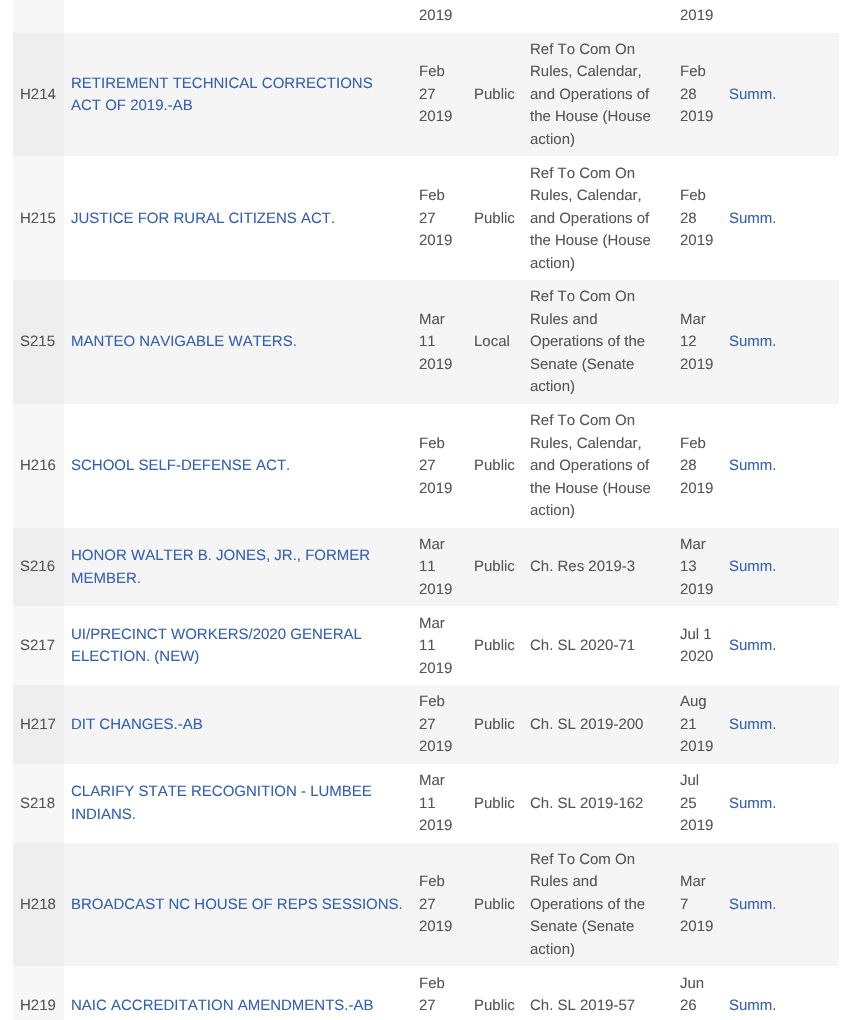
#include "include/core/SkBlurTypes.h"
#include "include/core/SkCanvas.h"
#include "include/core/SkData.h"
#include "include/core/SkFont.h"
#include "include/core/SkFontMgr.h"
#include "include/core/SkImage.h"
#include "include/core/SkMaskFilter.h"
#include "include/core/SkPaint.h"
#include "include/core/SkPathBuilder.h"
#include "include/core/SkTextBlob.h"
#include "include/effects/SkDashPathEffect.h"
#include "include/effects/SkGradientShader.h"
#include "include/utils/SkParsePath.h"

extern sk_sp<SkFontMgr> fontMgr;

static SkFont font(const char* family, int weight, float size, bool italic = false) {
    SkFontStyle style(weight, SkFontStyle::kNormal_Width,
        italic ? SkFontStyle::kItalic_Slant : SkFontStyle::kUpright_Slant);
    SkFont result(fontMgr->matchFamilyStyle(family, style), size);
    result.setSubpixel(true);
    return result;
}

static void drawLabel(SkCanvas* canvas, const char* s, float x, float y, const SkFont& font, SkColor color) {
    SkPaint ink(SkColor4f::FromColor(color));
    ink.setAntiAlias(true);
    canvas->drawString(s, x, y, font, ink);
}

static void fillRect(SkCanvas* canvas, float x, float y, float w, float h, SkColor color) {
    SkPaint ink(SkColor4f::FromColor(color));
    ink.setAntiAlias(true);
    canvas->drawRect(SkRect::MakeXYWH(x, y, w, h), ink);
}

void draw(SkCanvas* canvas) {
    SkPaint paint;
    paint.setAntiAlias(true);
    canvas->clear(0xFFFFFFFF);
    fillRect(canvas, 13, 0, 51, 33, 0xFFF7F7F7);
    SkFont font1 = font("Liberation Sans", 400, 15);
    drawLabel(canvas, "2019", 419, 20, font1, 0xFF555555);
    drawLabel(canvas, "2019", 680, 20, font1, 0xFF555555);
    fillRect(canvas, 64, 33, 775, 123, 0xFFF5F5F5);
    fillRect(canvas, 13, 33, 51, 123, 0xFFEEEEEE);
    drawLabel(canvas, "H214", 20, 99, font1, 0xFF555555);
    drawLabel(canvas, "RETIREMENT TECHNICAL CORRECTIONS", 71, 88, font1, 0xFF3561B1);
    drawLabel(canvas, "ACT OF 2019.-AB", 71, 110, font1, 0xFF3561B1);
    drawLabel(canvas, "Feb", 419, 76, font1, 0xFF555555);
    drawLabel(canvas, "27", 419, 99, font1, 0xFF555555);
    drawLabel(canvas, "2019", 419, 121, font1, 0xFF555555);
    drawLabel(canvas, "Public", 474, 99, font1, 0xFF555555);
    drawLabel(canvas, "Ref To Com On", 530, 54, font1, 0xFF555555);
    drawLabel(canvas, "Rules, Calendar,", 530, 76, font1, 0xFF555555);
    drawLabel(canvas, "and Operations of", 530, 99, font1, 0xFF555555);
    drawLabel(canvas, "the House (House", 530, 121, font1, 0xFF555555);
    drawLabel(canvas, "action)", 530, 144, font1, 0xFF555555);
    drawLabel(canvas, "Feb", 680, 76, font1, 0xFF555555);
    drawLabel(canvas, "28", 680, 99, font1, 0xFF555555);
    drawLabel(canvas, "2019", 680, 121, font1, 0xFF555555);
    drawLabel(canvas, "Summ.", 729, 99, font1, 0xFF3561B1);
    fillRect(canvas, 13, 156, 51, 124, 0xFFF7F7F7);
    drawLabel(canvas, "H215", 20, 223, font1, 0xFF555555);
    drawLabel(canvas, "JUSTICE FOR RURAL CITIZENS ACT.", 71, 223, font1, 0xFF3561B1);
    drawLabel(canvas, "Feb", 419, 200, font1, 0xFF555555);
    drawLabel(canvas, "27", 419, 223, font1, 0xFF555555);
    drawLabel(canvas, "2019", 419, 245, font1, 0xFF555555);
    drawLabel(canvas, "Public", 474, 223, font1, 0xFF555555);
    drawLabel(canvas, "Ref To Com On", 530, 178, font1, 0xFF555555);
    drawLabel(canvas, "Rules, Calendar,", 530, 200, font1, 0xFF555555);
    drawLabel(canvas, "and Operations of", 530, 223, font1, 0xFF555555);
    drawLabel(canvas, "the House (House", 530, 245, font1, 0xFF555555);
    drawLabel(canvas, "action)", 530, 268, font1, 0xFF555555);
    drawLabel(canvas, "Feb", 680, 200, font1, 0xFF555555);
    drawLabel(canvas, "28", 680, 223, font1, 0xFF555555);
    drawLabel(canvas, "2019", 680, 245, font1, 0xFF555555);
    drawLabel(canvas, "Summ.", 729, 223, font1, 0xFF3561B1);
    fillRect(canvas, 64, 280, 775, 124, 0xFFF5F5F5);
    fillRect(canvas, 13, 280, 51, 124, 0xFFEEEEEE);
    drawLabel(canvas, "S215", 20, 346, font1, 0xFF555555);
    drawLabel(canvas, "MANTEO NAVIGABLE WATERS.", 71, 346, font1, 0xFF3561B1);
    drawLabel(canvas, "Mar", 419, 324, font1, 0xFF555555);
    drawLabel(canvas, "11", 419, 346, font1, 0xFF555555);
    drawLabel(canvas, "2019", 419, 369, font1, 0xFF555555);
    drawLabel(canvas, "Local", 474, 346, font1, 0xFF555555);
    drawLabel(canvas, "Ref To Com On", 530, 301, font1, 0xFF555555);
    drawLabel(canvas, "Rules and", 530, 324, font1, 0xFF555555);
    drawLabel(canvas, "Operations of the", 530, 346, font1, 0xFF555555);
    drawLabel(canvas, "Senate (Senate", 530, 369, font1, 0xFF555555);
    drawLabel(canvas, "action)", 530, 391, font1, 0xFF555555);
    drawLabel(canvas, "Mar", 680, 324, font1, 0xFF555555);
    drawLabel(canvas, "12", 680, 346, font1, 0xFF555555);
    drawLabel(canvas, "2019", 680, 369, font1, 0xFF555555);
    drawLabel(canvas, "Summ.", 729, 346, font1, 0xFF3561B1);
    fillRect(canvas, 13, 404, 51, 124, 0xFFF7F7F7);
    drawLabel(canvas, "H216", 20, 470, font1, 0xFF555555);
    drawLabel(canvas, "SCHOOL SELF-DEFENSE ACT.", 71, 470, font1, 0xFF3561B1);
    drawLabel(canvas, "Feb", 419, 448, font1, 0xFF555555);
    drawLabel(canvas, "27", 419, 470, font1, 0xFF555555);
    drawLabel(canvas, "2019", 419, 493, font1, 0xFF555555);
    drawLabel(canvas, "Public", 474, 470, font1, 0xFF555555);
    drawLabel(canvas, "Ref To Com On", 530, 425, font1, 0xFF555555);
    drawLabel(canvas, "Rules, Calendar,", 530, 448, font1, 0xFF555555);
    drawLabel(canvas, "and Operations of", 530, 470, font1, 0xFF555555);
    drawLabel(canvas, "the House (House", 530, 493, font1, 0xFF555555);
    drawLabel(canvas, "action)", 530, 515, font1, 0xFF555555);
    drawLabel(canvas, "Feb", 680, 448, font1, 0xFF555555);
    drawLabel(canvas, "28", 680, 470, font1, 0xFF555555);
    drawLabel(canvas, "2019", 680, 493, font1, 0xFF555555);
    drawLabel(canvas, "Summ.", 729, 470, font1, 0xFF3561B1);
    fillRect(canvas, 64, 528, 775, 78, 0xFFF5F5F5);
    fillRect(canvas, 13, 528, 51, 78, 0xFFEEEEEE);
    drawLabel(canvas, "S216", 20, 571, font1, 0xFF555555);
    drawLabel(canvas, "HONOR WALTER B. JONES, JR., FORMER", 71, 560, font1, 0xFF3561B1);
    drawLabel(canvas, "MEMBER.", 71, 583, font1, 0xFF3561B1);
    drawLabel(canvas, "Mar", 419, 549, font1, 0xFF555555);
    drawLabel(canvas, "11", 419, 571, font1, 0xFF555555);
    drawLabel(canvas, "2019", 419, 594, font1, 0xFF555555);
    drawLabel(canvas, "Public", 474, 571, font1, 0xFF555555);
    drawLabel(canvas, "Ch. Res 2019-3", 530, 571, font1, 0xFF555555);
    drawLabel(canvas, "Mar", 680, 549, font1, 0xFF555555);
    drawLabel(canvas, "13", 680, 571, font1, 0xFF555555);
    drawLabel(canvas, "2019", 680, 594, font1, 0xFF555555);
    drawLabel(canvas, "Summ.", 729, 571, font1, 0xFF3561B1);
    fillRect(canvas, 13, 606, 51, 79, 0xFFF7F7F7);
    drawLabel(canvas, "S217", 20, 650, font1, 0xFF555555);
    drawLabel(canvas, "UI/PRECINCT WORKERS/2020 GENERAL", 71, 639, font1, 0xFF3561B1);
    drawLabel(canvas, "ELECTION. (NEW)", 71, 661, font1, 0xFF3561B1);
    drawLabel(canvas, "Mar", 419, 628, font1, 0xFF555555);
    drawLabel(canvas, "11", 419, 650, font1, 0xFF555555);
    drawLabel(canvas, "2019", 419, 673, font1, 0xFF555555);
    drawLabel(canvas, "Public", 474, 650, font1, 0xFF555555);
    drawLabel(canvas, "Ch. SL 2020-71", 530, 650, font1, 0xFF555555);
    drawLabel(canvas, "Jul 1", 680, 639, font1, 0xFF555555);
    drawLabel(canvas, "2020", 680, 661, font1, 0xFF555555);
    drawLabel(canvas, "Summ.", 729, 650, font1, 0xFF3561B1);
    fillRect(canvas, 64, 685, 775, 79, 0xFFF5F5F5);
    fillRect(canvas, 13, 685, 51, 79, 0xFFEEEEEE);
    drawLabel(canvas, "H217", 20, 729, font1, 0xFF555555);
    drawLabel(canvas, "DIT CHANGES.-AB", 71, 729, font1, 0xFF3561B1);
    drawLabel(canvas, "Feb", 419, 706, font1, 0xFF555555);
    drawLabel(canvas, "27", 419, 729, font1, 0xFF555555);
    drawLabel(canvas, "2019", 419, 751, font1, 0xFF555555);
    drawLabel(canvas, "Public", 474, 729, font1, 0xFF555555);
    drawLabel(canvas, "Ch. SL 2019-200", 530, 729, font1, 0xFF555555);
    drawLabel(canvas, "Aug", 680, 706, font1, 0xFF555555);
    drawLabel(canvas, "21", 680, 729, font1, 0xFF555555);
    drawLabel(canvas, "2019", 680, 751, font1, 0xFF555555);
    drawLabel(canvas, "Summ.", 729, 729, font1, 0xFF3561B1);
    fillRect(canvas, 13, 764, 51, 79, 0xFFF7F7F7);
    drawLabel(canvas, "S218", 20, 808, font1, 0xFF555555);
    drawLabel(canvas, "CLARIFY STATE RECOGNITION - LUMBEE", 71, 796, font1, 0xFF3561B1);
    drawLabel(canvas, "INDIANS.", 71, 819, font1, 0xFF3561B1);
    drawLabel(canvas, "Mar", 419, 785, font1, 0xFF555555);
    drawLabel(canvas, "11", 419, 808, font1, 0xFF555555);
    drawLabel(canvas, "2019", 419, 830, font1, 0xFF555555);
    drawLabel(canvas, "Public", 474, 808, font1, 0xFF555555);
    drawLabel(canvas, "Ch. SL 2019-162", 530, 808, font1, 0xFF555555);
    drawLabel(canvas, "Jul", 680, 785, font1, 0xFF555555);
    drawLabel(canvas, "25", 680, 808, font1, 0xFF555555);
    drawLabel(canvas, "2019", 680, 830, font1, 0xFF555555);
    drawLabel(canvas, "Summ.", 729, 808, font1, 0xFF3561B1);
    fillRect(canvas, 64, 843, 775, 123, 0xFFF5F5F5);
    fillRect(canvas, 13, 843, 51, 123, 0xFFEEEEEE);
    drawLabel(canvas, "H218", 20, 909, font1, 0xFF555555);
    drawLabel(canvas, "BROADCAST NC HOUSE OF REPS SESSIONS.", 71, 909, font1, 0xFF3561B1);
    drawLabel(canvas, "Feb", 419, 886, font1, 0xFF555555);
    drawLabel(canvas, "27", 419, 909, font1, 0xFF555555);
    drawLabel(canvas, "2019", 419, 931, font1, 0xFF555555);
    drawLabel(canvas, "Public", 474, 909, font1, 0xFF555555);
    drawLabel(canvas, "Ref To Com On", 530, 864, font1, 0xFF555555);
    drawLabel(canvas, "Rules and", 530, 886, font1, 0xFF555555);
    drawLabel(canvas, "Operations of the", 530, 909, font1, 0xFF555555);
    drawLabel(canvas, "Senate (Senate", 530, 931, font1, 0xFF555555);
    drawLabel(canvas, "action)", 530, 954, font1, 0xFF555555);
    drawLabel(canvas, "Mar", 680, 886, font1, 0xFF555555);
    drawLabel(canvas, "7", 680, 909, font1, 0xFF555555);
    drawLabel(canvas, "2019", 680, 931, font1, 0xFF555555);
    drawLabel(canvas, "Summ.", 729, 909, font1, 0xFF3561B1);
    fillRect(canvas, 13, 966, 51, 54, 0xFFF7F7F7);
    drawLabel(canvas, "H219", 20, 1010, font1, 0xFF555555);
    drawLabel(canvas, "NAIC ACCREDITATION AMENDMENTS.-AB", 71, 1010, font1, 0xFF3561B1);
    drawLabel(canvas, "Feb", 419, 988, font1, 0xFF555555);
    drawLabel(canvas, "27", 419, 1010, font1, 0xFF555555);
    drawLabel(canvas, "Public", 474, 1010, font1, 0xFF555555);
    drawLabel(canvas, "Ch. SL 2019-57", 530, 1010, font1, 0xFF555555);
    drawLabel(canvas, "Jun", 680, 988, font1, 0xFF555555);
    drawLabel(canvas, "26", 680, 1010, font1, 0xFF555555);
    drawLabel(canvas, "Summ.", 729, 1010, font1, 0xFF3561B1);
}
